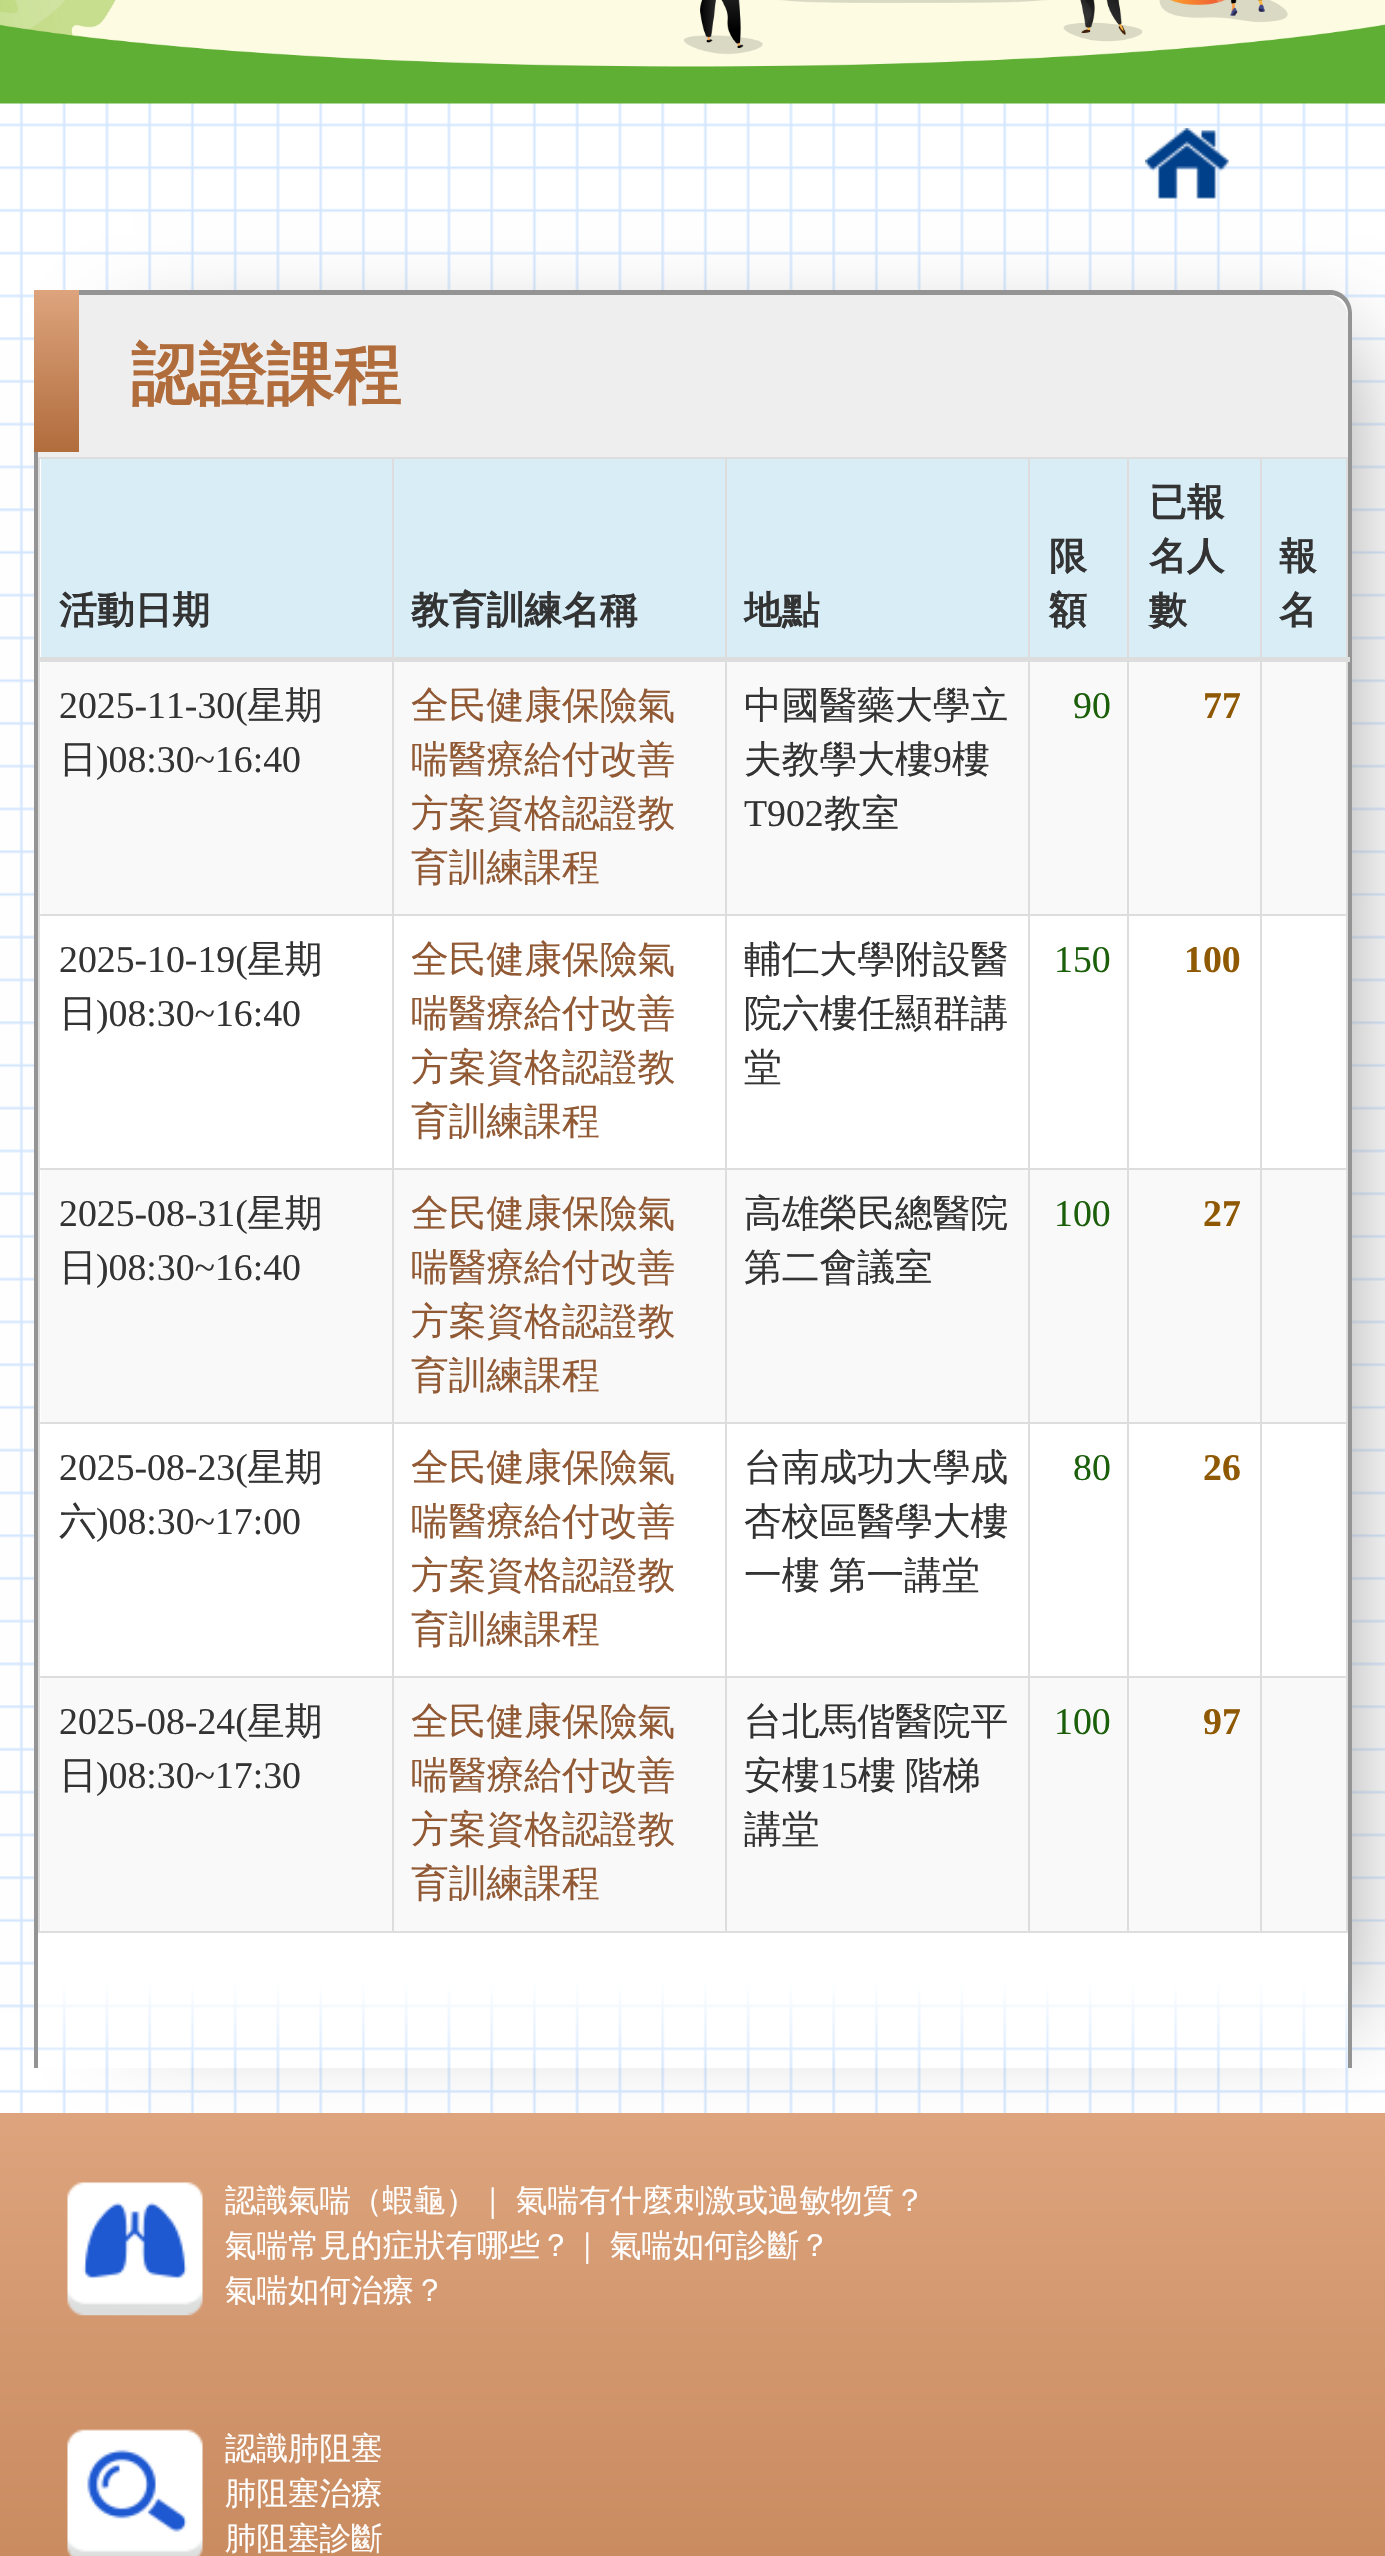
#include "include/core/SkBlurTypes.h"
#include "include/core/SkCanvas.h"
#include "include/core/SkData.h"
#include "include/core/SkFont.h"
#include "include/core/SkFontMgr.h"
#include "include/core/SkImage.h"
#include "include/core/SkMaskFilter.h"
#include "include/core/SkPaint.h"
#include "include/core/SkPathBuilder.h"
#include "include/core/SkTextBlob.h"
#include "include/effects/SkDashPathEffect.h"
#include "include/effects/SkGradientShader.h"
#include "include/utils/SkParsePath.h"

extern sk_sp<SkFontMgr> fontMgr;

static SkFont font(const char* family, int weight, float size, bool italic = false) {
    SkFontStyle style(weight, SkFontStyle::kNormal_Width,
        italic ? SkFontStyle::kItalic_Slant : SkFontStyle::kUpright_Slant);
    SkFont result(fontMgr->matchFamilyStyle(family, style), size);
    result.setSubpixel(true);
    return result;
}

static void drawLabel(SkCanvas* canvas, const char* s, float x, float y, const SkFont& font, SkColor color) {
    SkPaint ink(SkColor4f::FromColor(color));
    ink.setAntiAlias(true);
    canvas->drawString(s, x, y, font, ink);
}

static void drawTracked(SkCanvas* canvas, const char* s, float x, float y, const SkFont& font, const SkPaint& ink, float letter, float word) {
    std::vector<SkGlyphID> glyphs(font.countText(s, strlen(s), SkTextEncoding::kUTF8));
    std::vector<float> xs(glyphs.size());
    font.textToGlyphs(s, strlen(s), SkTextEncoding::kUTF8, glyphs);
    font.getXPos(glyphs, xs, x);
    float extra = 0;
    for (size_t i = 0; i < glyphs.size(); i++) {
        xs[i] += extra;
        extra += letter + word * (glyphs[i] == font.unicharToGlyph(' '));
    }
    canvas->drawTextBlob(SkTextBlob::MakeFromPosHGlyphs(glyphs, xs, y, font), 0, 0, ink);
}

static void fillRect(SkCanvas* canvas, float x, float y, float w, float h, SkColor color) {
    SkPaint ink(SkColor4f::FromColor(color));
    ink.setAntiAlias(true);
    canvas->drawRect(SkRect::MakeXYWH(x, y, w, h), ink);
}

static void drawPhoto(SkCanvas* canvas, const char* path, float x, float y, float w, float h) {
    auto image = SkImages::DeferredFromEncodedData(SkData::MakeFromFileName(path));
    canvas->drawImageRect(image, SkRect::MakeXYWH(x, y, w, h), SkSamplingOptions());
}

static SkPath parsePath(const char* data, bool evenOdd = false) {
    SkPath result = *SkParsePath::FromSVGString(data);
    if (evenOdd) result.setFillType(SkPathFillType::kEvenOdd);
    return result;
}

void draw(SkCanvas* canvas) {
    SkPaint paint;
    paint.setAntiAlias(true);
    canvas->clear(0xFFFFFFFF);
    drawPhoto(canvas, "assets/img1.png", 0, 103, 1385, 2010);
    drawPhoto(canvas, "assets/img2.png", 0, 0, 1385, 104);
    drawPhoto(canvas, "assets/img3.png", 1145, 128, 84, 71);
    canvas->save();
    canvas->clipPath(parsePath("M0 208H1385V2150H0ZM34 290H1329C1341.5 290 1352 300.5 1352 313V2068H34Z", true), true);
    paint.setColor(0xFF999999);
    paint.setMaskFilter(SkMaskFilter::MakeBlur(kNormal_SkBlurStyle, 45));
    canvas->drawRect(SkRect::MakeXYWH(133, 344, 1210, 1670), paint);
    paint.setMaskFilter(nullptr);
    canvas->restore();
    canvas->save();
    canvas->clipPath(parsePath("M34 290H1329C1341.5 290 1352 300.5 1352 313V2068H34Z"), true);
    {
        const SkColor colors[] = {0xFFFFFFFF, 0xFFFFFFFF, 0x00FFFFFF};
        const float stops[] = {0, 0.95f, 1};
        const SkPoint ends[] = {{693, 295}, {693, 2068}};
        paint.setShader(SkGradientShader::MakeLinear(ends, colors, stops, 3, SkTileMode::kClamp));
        paint.setAlpha(255);
    }
    canvas->drawRect(SkRect::MakeXYWH(38, 295, 1314, 1771), paint);
    canvas->restore();
    paint.setShader(nullptr);
    paint.setColor(0xFF949494);
    canvas->drawPath(parsePath("M34 290H1330C1342 290 1352 300 1352 313V2068H34ZM38 295H1330C1340 295 1348 303 1348 313V2068H38Z", true), paint);
    paint.setColor(0xFFEEEEEE);
    canvas->drawPath(parsePath("M38 295H1325C1337.5 295 1348 305.5 1348 318V457H38Z"), paint);
    {
        const SkColor colors[] = {0xFFDDA47D, 0xFFB16C3C};
        const float stops[] = {0, 1};
        const SkPoint ends[] = {{56, 290}, {56, 452}};
        paint.setShader(SkGradientShader::MakeLinear(ends, colors, stops, 2, SkTileMode::kClamp));
        paint.setAlpha(255);
    }
    canvas->drawRect(SkRect::MakeXYWH(34, 290, 45, 162), paint);
    SkFont font1 = font("WenQuanYi Zen Hei", 700, 67.5f);
    drawLabel(canvas, "認證課程", 131, 398, font1, 0xFFB16C3C);
    fillRect(canvas, 38, 457, 1310, 2, 0xFFDDDDDD);
    fillRect(canvas, 1346, 457, 2, 1476, 0xFFDDDDDD);
    fillRect(canvas, 38, 1931, 1310, 2, 0xFFDDDDDD);
    fillRect(canvas, 38, 457, 2, 1476, 0xFFDDDDDD);
    fillRect(canvas, 41, 459, 351, 198, 0xFFD9EDF7);
    SkFont font2 = font("WenQuanYi Zen Hei", 700, 37.75f);
    drawLabel(canvas, "活動日期", 59, 623, font2, 0xFF333333);
    fillRect(canvas, 394, 459, 331, 198, 0xFFD9EDF7);
    drawLabel(canvas, "教育訓練名稱", 411, 623, font2, 0xFF333333);
    fillRect(canvas, 727, 459, 533, 198, 0xFFD9EDF7);
    drawLabel(canvas, "地點", 744, 623, font2, 0xFF333333);
    drawLabel(canvas, "限", 1049, 569, font2, 0xFF333333);
    drawLabel(canvas, "額", 1049, 623, font2, 0xFF333333);
    drawLabel(canvas, "已報", 1149, 515, font2, 0xFF333333);
    drawLabel(canvas, "名人", 1149, 569, font2, 0xFF333333);
    drawLabel(canvas, "數", 1149, 623, font2, 0xFF333333);
    fillRect(canvas, 1262, 459, 84, 198, 0xFFD9EDF7);
    fillRect(canvas, 41, 662, 1305, 252, 0xFFF9F9F9);
    fillRect(canvas, 1260, 914, 88, 2, 0xFFDDDDDD);
    fillRect(canvas, 1260, 1168, 88, 2, 0xFFDDDDDD);
    fillRect(canvas, 41, 1170, 1305, 252, 0xFFF9F9F9);
    fillRect(canvas, 1260, 1422, 88, 2, 0xFFDDDDDD);
    fillRect(canvas, 41, 1678, 1305, 253, 0xFFF9F9F9);
    fillRect(canvas, 1260, 1676, 88, 2, 0xFFDDDDDD);
    fillRect(canvas, 1260, 1676, 2, 257, 0xFFDDDDDD);
    fillRect(canvas, 1127, 1676, 135, 2, 0xFFDDDDDD);
    fillRect(canvas, 1260, 1422, 2, 257, 0xFFDDDDDD);
    fillRect(canvas, 1127, 1422, 135, 2, 0xFFDDDDDD);
    fillRect(canvas, 1260, 1168, 2, 256, 0xFFDDDDDD);
    fillRect(canvas, 1127, 1168, 135, 2, 0xFFDDDDDD);
    fillRect(canvas, 1260, 914, 2, 256, 0xFFDDDDDD);
    fillRect(canvas, 1127, 914, 135, 2, 0xFFDDDDDD);
    fillRect(canvas, 1127, 1676, 2, 257, 0xFFDDDDDD);
    fillRect(canvas, 1028, 1676, 102, 2, 0xFFDDDDDD);
    fillRect(canvas, 1127, 1422, 2, 257, 0xFFDDDDDD);
    fillRect(canvas, 1028, 1422, 102, 2, 0xFFDDDDDD);
    fillRect(canvas, 1127, 1168, 2, 256, 0xFFDDDDDD);
    fillRect(canvas, 1028, 1168, 102, 2, 0xFFDDDDDD);
    fillRect(canvas, 1127, 914, 2, 256, 0xFFDDDDDD);
    fillRect(canvas, 1028, 914, 102, 2, 0xFFDDDDDD);
    fillRect(canvas, 1028, 1676, 2, 257, 0xFFDDDDDD);
    fillRect(canvas, 725, 1676, 306, 2, 0xFFDDDDDD);
    fillRect(canvas, 1028, 1422, 2, 257, 0xFFDDDDDD);
    fillRect(canvas, 725, 1422, 306, 2, 0xFFDDDDDD);
    fillRect(canvas, 1028, 1168, 2, 256, 0xFFDDDDDD);
    fillRect(canvas, 725, 1168, 306, 2, 0xFFDDDDDD);
    fillRect(canvas, 1028, 914, 2, 256, 0xFFDDDDDD);
    fillRect(canvas, 725, 914, 306, 2, 0xFFDDDDDD);
    fillRect(canvas, 725, 1676, 2, 257, 0xFFDDDDDD);
    fillRect(canvas, 392, 1676, 335, 2, 0xFFDDDDDD);
    fillRect(canvas, 725, 1422, 2, 257, 0xFFDDDDDD);
    fillRect(canvas, 392, 1422, 335, 2, 0xFFDDDDDD);
    fillRect(canvas, 725, 1168, 2, 256, 0xFFDDDDDD);
    fillRect(canvas, 392, 1168, 335, 2, 0xFFDDDDDD);
    fillRect(canvas, 725, 914, 2, 256, 0xFFDDDDDD);
    fillRect(canvas, 392, 914, 335, 2, 0xFFDDDDDD);
    fillRect(canvas, 392, 1676, 2, 257, 0xFFDDDDDD);
    fillRect(canvas, 38, 1676, 356, 2, 0xFFDDDDDD);
    fillRect(canvas, 392, 1422, 2, 257, 0xFFDDDDDD);
    fillRect(canvas, 38, 1422, 356, 2, 0xFFDDDDDD);
    fillRect(canvas, 392, 1168, 2, 256, 0xFFDDDDDD);
    fillRect(canvas, 38, 1168, 356, 2, 0xFFDDDDDD);
    fillRect(canvas, 392, 914, 2, 256, 0xFFDDDDDD);
    fillRect(canvas, 38, 914, 356, 2, 0xFFDDDDDD);
    fillRect(canvas, 392, 457, 2, 459, 0xFFDDDDDD);
    fillRect(canvas, 725, 457, 2, 459, 0xFFDDDDDD);
    fillRect(canvas, 1028, 457, 2, 459, 0xFFDDDDDD);
    fillRect(canvas, 1127, 457, 2, 459, 0xFFDDDDDD);
    fillRect(canvas, 1260, 457, 2, 459, 0xFFDDDDDD);
    fillRect(canvas, 38, 657, 1312, 5, 0xFFDDDDDD);
    drawLabel(canvas, "報", 1279, 569, font2, 0xFF333333);
    drawLabel(canvas, "名", 1279, 623, font2, 0xFF333333);
    SkFont font3 = font("Liberation Serif", 400, 37.75f);
    drawLabel(canvas, "2025-11-30(", 59, 718, font3, 0xFF333333);
    SkFont font4 = font("WenQuanYi Zen Hei", 500, 37.75f);
    drawLabel(canvas, "星期", 247, 718, font4, 0xFF333333);
    drawLabel(canvas, "日", 59, 772, font4, 0xFF333333);
    drawLabel(canvas, ")08:30~16:40", 96, 772, font3, 0xFF333333);
    drawLabel(canvas, "全民健康保險氣", 411, 718, font4, 0xFF915A35);
    drawLabel(canvas, "喘醫療給付改善", 411, 772, font4, 0xFF915A35);
    drawLabel(canvas, "方案資格認證教", 411, 826, font4, 0xFF915A35);
    drawLabel(canvas, "育訓練課程", 411, 880, font4, 0xFF915A35);
    drawLabel(canvas, "中國醫藥大學立", 744, 718, font4, 0xFF333333);
    drawLabel(canvas, "夫教學大樓", 744, 772, font4, 0xFF333333);
    drawLabel(canvas, "9", 933, 772, font3, 0xFF333333);
    drawLabel(canvas, "樓", 952, 772, font4, 0xFF333333);
    drawLabel(canvas, "T902", 744, 826, font3, 0xFF333333);
    drawLabel(canvas, "教室", 824, 826, font4, 0xFF333333);
    drawLabel(canvas, "90", 1073, 718, font3, 0xFF1C5F0B);
    SkFont font5 = font("Liberation Serif", 700, 37.75f);
    drawLabel(canvas, "77", 1203, 718, font5, 0xFF8F5904);
    drawLabel(canvas, "2025-10-19(", 59, 972, font3, 0xFF333333);
    drawLabel(canvas, "星期", 247, 972, font4, 0xFF333333);
    drawLabel(canvas, "日", 59, 1026, font4, 0xFF333333);
    drawLabel(canvas, ")08:30~16:40", 96, 1026, font3, 0xFF333333);
    drawLabel(canvas, "全民健康保險氣", 411, 972, font4, 0xFF915A35);
    drawLabel(canvas, "喘醫療給付改善", 411, 1026, font4, 0xFF915A35);
    drawLabel(canvas, "方案資格認證教", 411, 1080, font4, 0xFF915A35);
    drawLabel(canvas, "育訓練課程", 411, 1134, font4, 0xFF915A35);
    drawLabel(canvas, "輔仁大學附設醫", 744, 972, font4, 0xFF333333);
    drawLabel(canvas, "院六樓任顯群講", 744, 1026, font4, 0xFF333333);
    drawLabel(canvas, "堂", 744, 1080, font4, 0xFF333333);
    drawLabel(canvas, "150", 1054, 972, font3, 0xFF1C5F0B);
    drawLabel(canvas, "100", 1184, 972, font5, 0xFF8F5904);
    drawLabel(canvas, "2025-08-31(", 59, 1226, font3, 0xFF333333);
    drawLabel(canvas, "星期", 247, 1226, font4, 0xFF333333);
    drawLabel(canvas, "日", 59, 1280, font4, 0xFF333333);
    drawLabel(canvas, ")08:30~16:40", 96, 1280, font3, 0xFF333333);
    drawLabel(canvas, "全民健康保險氣", 411, 1226, font4, 0xFF915A35);
    drawLabel(canvas, "喘醫療給付改善", 411, 1280, font4, 0xFF915A35);
    drawLabel(canvas, "方案資格認證教", 411, 1334, font4, 0xFF915A35);
    drawLabel(canvas, "育訓練課程", 411, 1388, font4, 0xFF915A35);
    drawLabel(canvas, "高雄榮民總醫院", 744, 1226, font4, 0xFF333333);
    drawLabel(canvas, "第二會議室", 744, 1280, font4, 0xFF333333);
    drawLabel(canvas, "100", 1054, 1226, font3, 0xFF1C5F0B);
    drawLabel(canvas, "27", 1203, 1226, font5, 0xFF8F5904);
    drawLabel(canvas, "2025-08-23(", 59, 1480, font3, 0xFF333333);
    drawLabel(canvas, "星期", 247, 1480, font4, 0xFF333333);
    drawLabel(canvas, "六", 59, 1534, font4, 0xFF333333);
    drawLabel(canvas, ")08:30~17:00", 96, 1534, font3, 0xFF333333);
    drawLabel(canvas, "全民健康保險氣", 411, 1480, font4, 0xFF915A35);
    drawLabel(canvas, "喘醫療給付改善", 411, 1534, font4, 0xFF915A35);
    drawLabel(canvas, "方案資格認證教", 411, 1588, font4, 0xFF915A35);
    drawLabel(canvas, "育訓練課程", 411, 1642, font4, 0xFF915A35);
    drawLabel(canvas, "台南成功大學成", 744, 1480, font4, 0xFF333333);
    drawLabel(canvas, "杏校區醫學大樓", 744, 1534, font4, 0xFF333333);
    paint.setShader(nullptr);
    paint.setColor(0xFF333333);
    drawTracked(canvas, "一樓 第一講堂", 744, 1588, font4, paint, 0, -2);
    drawLabel(canvas, "80", 1073, 1480, font3, 0xFF1C5F0B);
    drawLabel(canvas, "26", 1203, 1480, font5, 0xFF8F5904);
    drawLabel(canvas, "2025-08-24(", 59, 1734, font3, 0xFF333333);
    drawLabel(canvas, "星期", 247, 1734, font4, 0xFF333333);
    drawLabel(canvas, "日", 59, 1788, font4, 0xFF333333);
    drawLabel(canvas, ")08:30~17:30", 96, 1788, font3, 0xFF333333);
    drawLabel(canvas, "全民健康保險氣", 411, 1734, font4, 0xFF915A35);
    drawLabel(canvas, "喘醫療給付改善", 411, 1788, font4, 0xFF915A35);
    drawLabel(canvas, "方案資格認證教", 411, 1842, font4, 0xFF915A35);
    drawLabel(canvas, "育訓練課程", 411, 1896, font4, 0xFF915A35);
    drawLabel(canvas, "台北馬偕醫院平", 744, 1734, font4, 0xFF333333);
    drawLabel(canvas, "安樓", 744, 1788, font4, 0xFF333333);
    drawLabel(canvas, "15", 820, 1788, font3, 0xFF333333);
    drawTracked(canvas, "樓 階梯", 858, 1788, font4, paint, 0, -2);
    drawLabel(canvas, "講堂", 744, 1842, font4, 0xFF333333);
    drawLabel(canvas, "100", 1054, 1734, font3, 0xFF1C5F0B);
    drawLabel(canvas, "97", 1203, 1734, font5, 0xFF8F5904);
    {
        const SkColor colors[] = {0xFFDDA47D, 0xFFB16C3C};
        const float stops[] = {0, 1};
        const SkPoint ends[] = {{693, 2113}, {693, 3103}};
        paint.setShader(SkGradientShader::MakeLinear(ends, colors, stops, 2, SkTileMode::kClamp));
        paint.setAlpha(255);
    }
    canvas->drawRect(SkRect::MakeXYWH(0, 2113, 1385, 443), paint);
    drawPhoto(canvas, "assets/img4.png", 67, 2182, 136, 134);
    SkFont font6 = font("WenQuanYi Zen Hei", 500, 31.5f);
    drawLabel(canvas, "認識氣喘（蝦龜）｜", 225, 2211, font6, 0xFFFFFFFF);
    drawLabel(canvas, "氣喘有什麼刺激或過敏物質？", 516, 2211, font6, 0xFFFFFFFF);
    drawLabel(canvas, "氣喘常見的症狀有哪些？｜", 225, 2256, font6, 0xFFFFFFFF);
    drawLabel(canvas, "氣喘如何診斷？", 610, 2256, font6, 0xFFFFFFFF);
    drawLabel(canvas, "氣喘如何治療？", 225, 2301, font6, 0xFFFFFFFF);
    drawPhoto(canvas, "assets/img5.png", 67, 2429, 136, 127);
    drawLabel(canvas, "認識肺阻塞", 225, 2459, font6, 0xFFFFFFFF);
    drawLabel(canvas, "肺阻塞治療", 225, 2504, font6, 0xFFFFFFFF);
    drawLabel(canvas, "肺阻塞診斷", 225, 2549, font6, 0xFFFFFFFF);
}
